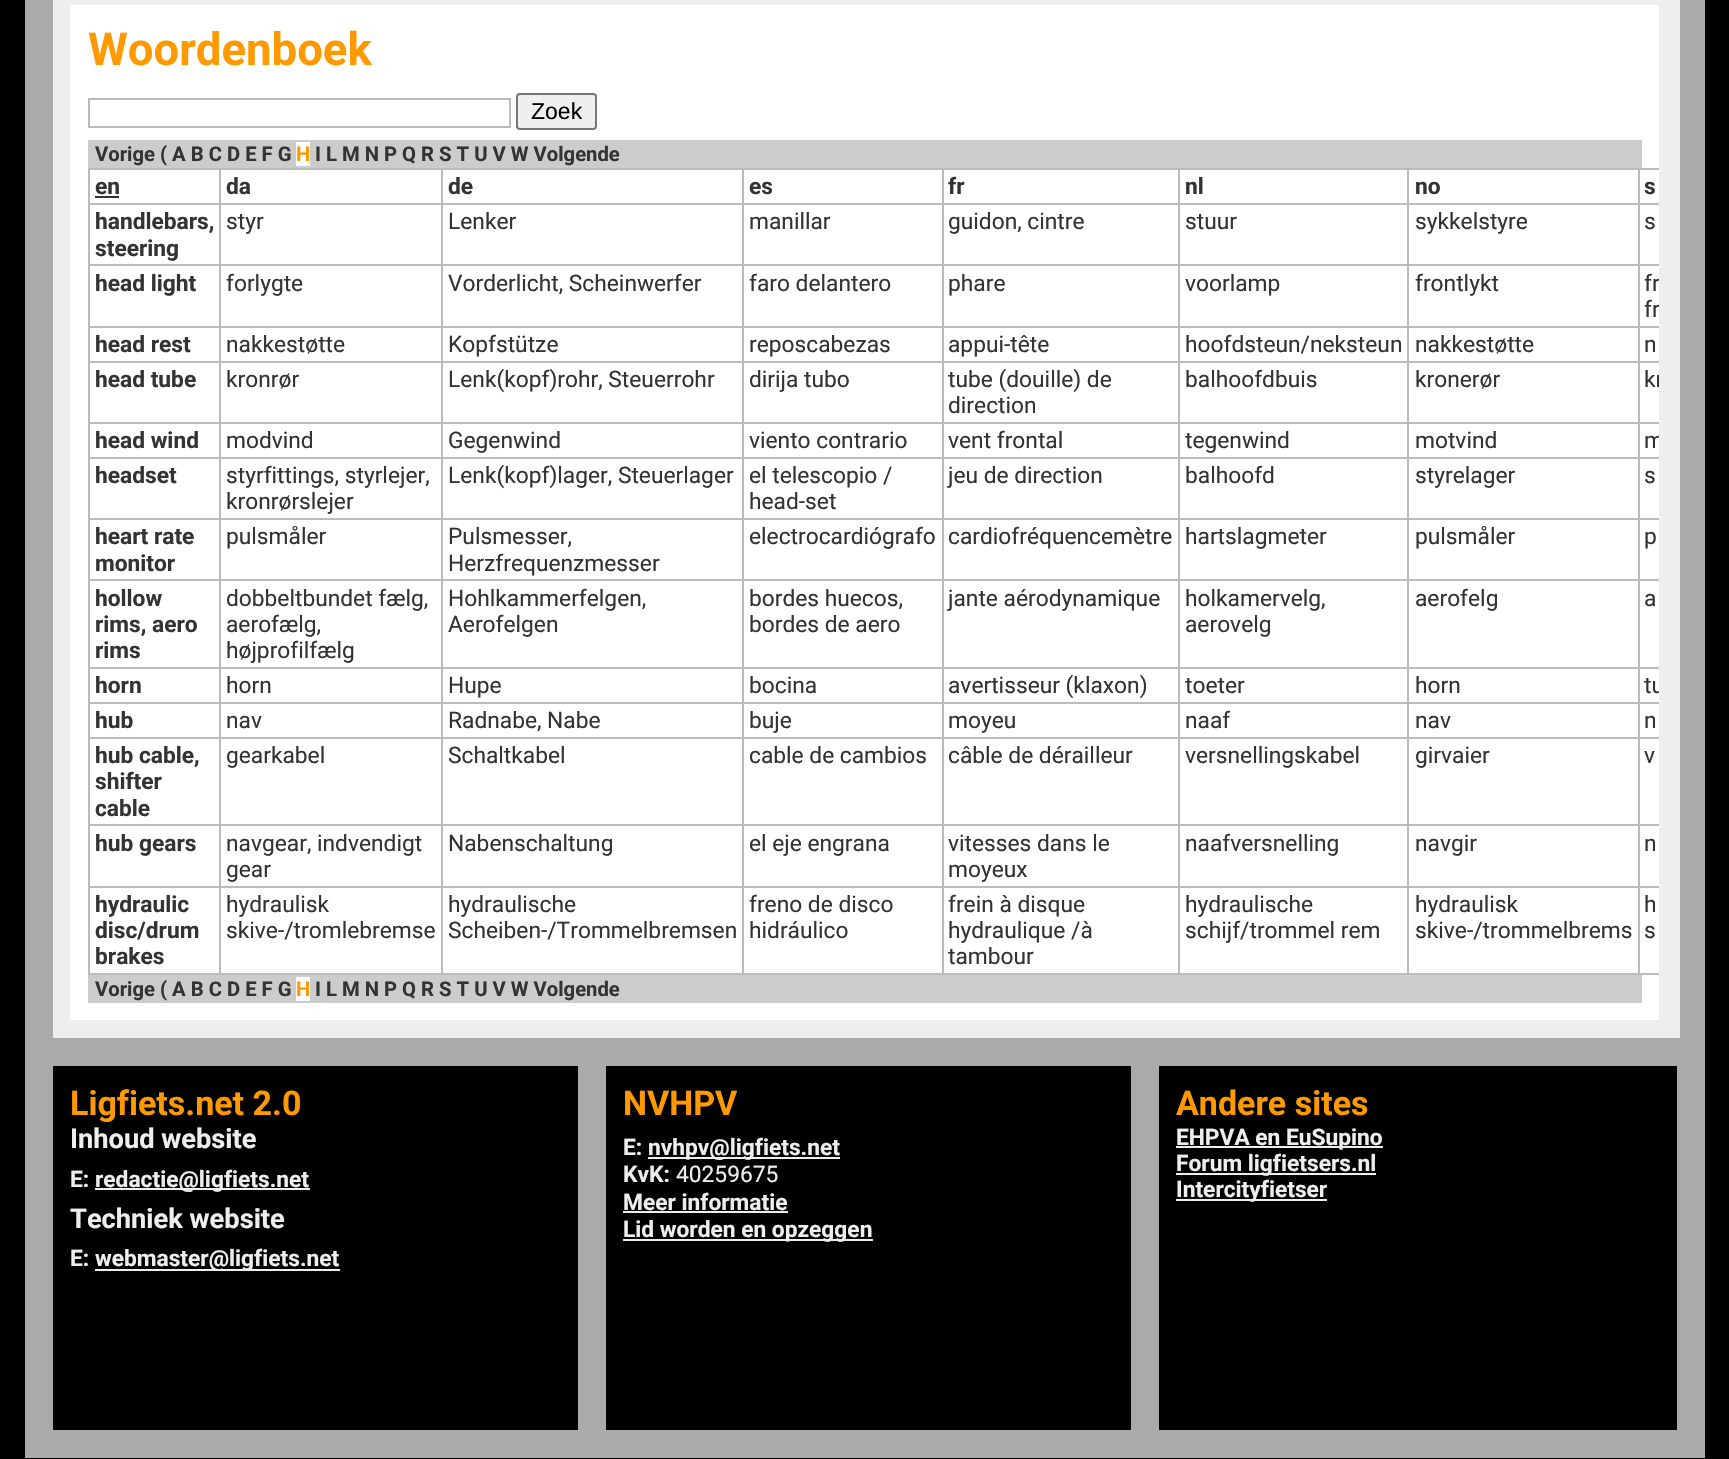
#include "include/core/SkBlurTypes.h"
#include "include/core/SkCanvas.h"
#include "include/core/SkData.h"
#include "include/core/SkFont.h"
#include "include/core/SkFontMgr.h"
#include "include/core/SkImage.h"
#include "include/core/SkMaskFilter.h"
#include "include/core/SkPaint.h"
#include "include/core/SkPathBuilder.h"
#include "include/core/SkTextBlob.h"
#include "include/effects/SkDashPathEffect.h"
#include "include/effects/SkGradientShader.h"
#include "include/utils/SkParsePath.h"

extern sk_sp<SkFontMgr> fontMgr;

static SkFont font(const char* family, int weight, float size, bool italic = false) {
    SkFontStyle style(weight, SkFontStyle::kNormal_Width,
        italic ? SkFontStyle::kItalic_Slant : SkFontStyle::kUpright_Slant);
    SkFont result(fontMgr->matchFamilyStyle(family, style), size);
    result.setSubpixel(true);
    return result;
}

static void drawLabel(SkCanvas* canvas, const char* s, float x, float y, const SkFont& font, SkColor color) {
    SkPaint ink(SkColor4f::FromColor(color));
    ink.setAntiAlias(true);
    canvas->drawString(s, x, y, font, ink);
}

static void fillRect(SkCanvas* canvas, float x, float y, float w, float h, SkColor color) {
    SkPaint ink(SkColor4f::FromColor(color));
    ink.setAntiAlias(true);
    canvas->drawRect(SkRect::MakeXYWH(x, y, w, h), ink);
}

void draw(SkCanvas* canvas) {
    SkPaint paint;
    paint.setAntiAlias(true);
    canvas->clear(0xFF000000);
    fillRect(canvas, 25, 0, 1680, 1458, 0xFFAAAAAA);
    fillRect(canvas, 53, 0, 1627, 1038, 0xFFEEEEEE);
    fillRect(canvas, 70, 5, 1589, 1015, 0xFFFFFFFF);
    SkFont font1 = font("Roboto", 700, 45.5f);
    drawLabel(canvas, "Woordenboek", 88, 65, font1, 0xFFFF9900);
    paint.setStroke(true);
    paint.setStrokeWidth(2);
    paint.setColor(0xFFBBBBBB);
    canvas->drawRect(SkRect::MakeXYWH(89, 99, 421, 28), paint);
    paint.setStroke(false);
    paint.setColor(0xFFEFEFEF);
    canvas->drawRoundRect(SkRect::MakeXYWH(517, 94, 79, 35), 3, 3, paint);
    paint.setStroke(true);
    paint.setColor(0xFF767676);
    canvas->drawRoundRect(SkRect::MakeXYWH(517, 94, 79, 35), 3, 3, paint);
    SkFont font2 = font("Liberation Sans", 400, 23);
    drawLabel(canvas, "Zoek", 531, 119, font2, 0xFF000000);
    fillRect(canvas, 88, 140, 1554, 28, 0xFFCCCCCC);
    SkFont font3 = font("Roboto", 700, 20.25f);
    drawLabel(canvas, "Vorige ( A B C D E F G", 95, 161, font3, 0xFF333333);
    fillRect(canvas, 296, 142, 14, 24, 0xFFFFFFFF);
    drawLabel(canvas, "H", 296, 161, font3, 0xFFFF9900);
    drawLabel(canvas, "I L M N P Q R S T U V W Volgende", 315, 161, font3, 0xFF333333);
    fillRect(canvas, 88, 168, 1571, 2, 0xFFBBBBBB);
    fillRect(canvas, 88, 973, 1571, 2, 0xFFBBBBBB);
    fillRect(canvas, 88, 168, 2, 807, 0xFFBBBBBB);
    SkFont font4 = font("Roboto", 700, 22.75f);
    drawLabel(canvas, "en", 95, 194, font4, 0xFF333333);
    fillRect(canvas, 95, 196, 24, 2, 0xFF333333);
    fillRect(canvas, 1638, 203, 21, 2, 0xFFBBBBBB);
    fillRect(canvas, 1638, 264, 21, 2, 0xFFBBBBBB);
    fillRect(canvas, 1638, 326, 21, 2, 0xFFBBBBBB);
    fillRect(canvas, 1638, 361, 21, 2, 0xFFBBBBBB);
    fillRect(canvas, 1638, 422, 21, 2, 0xFFBBBBBB);
    fillRect(canvas, 1638, 457, 21, 2, 0xFFBBBBBB);
    fillRect(canvas, 1638, 518, 21, 2, 0xFFBBBBBB);
    fillRect(canvas, 1638, 579, 21, 2, 0xFFBBBBBB);
    fillRect(canvas, 1638, 667, 21, 2, 0xFFBBBBBB);
    fillRect(canvas, 1638, 702, 21, 2, 0xFFBBBBBB);
    fillRect(canvas, 1638, 737, 21, 2, 0xFFBBBBBB);
    fillRect(canvas, 1638, 824, 21, 2, 0xFFBBBBBB);
    fillRect(canvas, 1638, 886, 21, 2, 0xFFBBBBBB);
    fillRect(canvas, 1638, 886, 2, 89, 0xFFBBBBBB);
    fillRect(canvas, 1407, 886, 233, 2, 0xFFBBBBBB);
    fillRect(canvas, 1638, 824, 2, 63, 0xFFBBBBBB);
    fillRect(canvas, 1407, 824, 233, 2, 0xFFBBBBBB);
    fillRect(canvas, 1638, 737, 2, 89, 0xFFBBBBBB);
    fillRect(canvas, 1407, 737, 233, 2, 0xFFBBBBBB);
    fillRect(canvas, 1638, 702, 2, 37, 0xFFBBBBBB);
    fillRect(canvas, 1407, 702, 233, 2, 0xFFBBBBBB);
    fillRect(canvas, 1638, 667, 2, 37, 0xFFBBBBBB);
    fillRect(canvas, 1407, 667, 233, 2, 0xFFBBBBBB);
    fillRect(canvas, 1638, 579, 2, 90, 0xFFBBBBBB);
    fillRect(canvas, 1407, 579, 233, 2, 0xFFBBBBBB);
    fillRect(canvas, 1638, 518, 2, 63, 0xFFBBBBBB);
    fillRect(canvas, 1407, 518, 233, 2, 0xFFBBBBBB);
    fillRect(canvas, 1638, 457, 2, 63, 0xFFBBBBBB);
    fillRect(canvas, 1407, 457, 233, 2, 0xFFBBBBBB);
    fillRect(canvas, 1638, 422, 2, 37, 0xFFBBBBBB);
    fillRect(canvas, 1407, 422, 233, 2, 0xFFBBBBBB);
    fillRect(canvas, 1638, 361, 2, 63, 0xFFBBBBBB);
    fillRect(canvas, 1407, 361, 233, 2, 0xFFBBBBBB);
    fillRect(canvas, 1638, 326, 2, 36, 0xFFBBBBBB);
    fillRect(canvas, 1407, 326, 233, 2, 0xFFBBBBBB);
    fillRect(canvas, 1638, 264, 2, 63, 0xFFBBBBBB);
    fillRect(canvas, 1407, 264, 233, 2, 0xFFBBBBBB);
    fillRect(canvas, 1638, 203, 2, 63, 0xFFBBBBBB);
    fillRect(canvas, 1407, 203, 233, 2, 0xFFBBBBBB);
    fillRect(canvas, 1407, 886, 2, 89, 0xFFBBBBBB);
    fillRect(canvas, 1178, 886, 231, 2, 0xFFBBBBBB);
    fillRect(canvas, 1407, 824, 2, 63, 0xFFBBBBBB);
    fillRect(canvas, 1178, 824, 231, 2, 0xFFBBBBBB);
    fillRect(canvas, 1407, 737, 2, 89, 0xFFBBBBBB);
    fillRect(canvas, 1178, 737, 231, 2, 0xFFBBBBBB);
    fillRect(canvas, 1407, 702, 2, 37, 0xFFBBBBBB);
    fillRect(canvas, 1178, 702, 231, 2, 0xFFBBBBBB);
    fillRect(canvas, 1407, 667, 2, 37, 0xFFBBBBBB);
    fillRect(canvas, 1178, 667, 231, 2, 0xFFBBBBBB);
    fillRect(canvas, 1407, 579, 2, 90, 0xFFBBBBBB);
    fillRect(canvas, 1178, 579, 231, 2, 0xFFBBBBBB);
    fillRect(canvas, 1407, 518, 2, 63, 0xFFBBBBBB);
    fillRect(canvas, 1178, 518, 231, 2, 0xFFBBBBBB);
    fillRect(canvas, 1407, 457, 2, 63, 0xFFBBBBBB);
    fillRect(canvas, 1178, 457, 231, 2, 0xFFBBBBBB);
    fillRect(canvas, 1407, 422, 2, 37, 0xFFBBBBBB);
    fillRect(canvas, 1178, 422, 231, 2, 0xFFBBBBBB);
    fillRect(canvas, 1407, 361, 2, 63, 0xFFBBBBBB);
    fillRect(canvas, 1178, 361, 231, 2, 0xFFBBBBBB);
    fillRect(canvas, 1407, 326, 2, 36, 0xFFBBBBBB);
    fillRect(canvas, 1178, 326, 231, 2, 0xFFBBBBBB);
    fillRect(canvas, 1407, 264, 2, 63, 0xFFBBBBBB);
    fillRect(canvas, 1178, 264, 231, 2, 0xFFBBBBBB);
    fillRect(canvas, 1407, 203, 2, 63, 0xFFBBBBBB);
    fillRect(canvas, 1178, 203, 231, 2, 0xFFBBBBBB);
    fillRect(canvas, 1178, 886, 2, 89, 0xFFBBBBBB);
    fillRect(canvas, 942, 886, 238, 2, 0xFFBBBBBB);
    fillRect(canvas, 1178, 824, 2, 63, 0xFFBBBBBB);
    fillRect(canvas, 942, 824, 238, 2, 0xFFBBBBBB);
    fillRect(canvas, 1178, 737, 2, 89, 0xFFBBBBBB);
    fillRect(canvas, 942, 737, 238, 2, 0xFFBBBBBB);
    fillRect(canvas, 1178, 702, 2, 37, 0xFFBBBBBB);
    fillRect(canvas, 942, 702, 238, 2, 0xFFBBBBBB);
    fillRect(canvas, 1178, 667, 2, 37, 0xFFBBBBBB);
    fillRect(canvas, 942, 667, 238, 2, 0xFFBBBBBB);
    fillRect(canvas, 1178, 579, 2, 90, 0xFFBBBBBB);
    fillRect(canvas, 942, 579, 238, 2, 0xFFBBBBBB);
    fillRect(canvas, 1178, 518, 2, 63, 0xFFBBBBBB);
    fillRect(canvas, 942, 518, 238, 2, 0xFFBBBBBB);
    fillRect(canvas, 1178, 457, 2, 63, 0xFFBBBBBB);
    fillRect(canvas, 942, 457, 238, 2, 0xFFBBBBBB);
    fillRect(canvas, 1178, 422, 2, 37, 0xFFBBBBBB);
    fillRect(canvas, 942, 422, 238, 2, 0xFFBBBBBB);
    fillRect(canvas, 1178, 361, 2, 63, 0xFFBBBBBB);
    fillRect(canvas, 942, 361, 238, 2, 0xFFBBBBBB);
    fillRect(canvas, 1178, 326, 2, 36, 0xFFBBBBBB);
    fillRect(canvas, 942, 326, 238, 2, 0xFFBBBBBB);
    fillRect(canvas, 1178, 264, 2, 63, 0xFFBBBBBB);
    fillRect(canvas, 942, 264, 238, 2, 0xFFBBBBBB);
    fillRect(canvas, 1178, 203, 2, 63, 0xFFBBBBBB);
    fillRect(canvas, 942, 203, 238, 2, 0xFFBBBBBB);
    fillRect(canvas, 942, 886, 2, 89, 0xFFBBBBBB);
    fillRect(canvas, 742, 886, 201, 2, 0xFFBBBBBB);
    fillRect(canvas, 942, 824, 2, 63, 0xFFBBBBBB);
    fillRect(canvas, 742, 824, 201, 2, 0xFFBBBBBB);
    fillRect(canvas, 942, 737, 2, 89, 0xFFBBBBBB);
    fillRect(canvas, 742, 737, 201, 2, 0xFFBBBBBB);
    fillRect(canvas, 942, 702, 2, 37, 0xFFBBBBBB);
    fillRect(canvas, 742, 702, 201, 2, 0xFFBBBBBB);
    fillRect(canvas, 942, 667, 2, 37, 0xFFBBBBBB);
    fillRect(canvas, 742, 667, 201, 2, 0xFFBBBBBB);
    fillRect(canvas, 942, 579, 2, 90, 0xFFBBBBBB);
    fillRect(canvas, 742, 579, 201, 2, 0xFFBBBBBB);
    fillRect(canvas, 942, 518, 2, 63, 0xFFBBBBBB);
    fillRect(canvas, 742, 518, 201, 2, 0xFFBBBBBB);
    fillRect(canvas, 942, 457, 2, 63, 0xFFBBBBBB);
    fillRect(canvas, 742, 457, 201, 2, 0xFFBBBBBB);
    fillRect(canvas, 942, 422, 2, 37, 0xFFBBBBBB);
    fillRect(canvas, 742, 422, 201, 2, 0xFFBBBBBB);
    fillRect(canvas, 942, 361, 2, 63, 0xFFBBBBBB);
    fillRect(canvas, 742, 361, 201, 2, 0xFFBBBBBB);
    fillRect(canvas, 942, 326, 2, 36, 0xFFBBBBBB);
    fillRect(canvas, 742, 326, 201, 2, 0xFFBBBBBB);
    fillRect(canvas, 942, 264, 2, 63, 0xFFBBBBBB);
    fillRect(canvas, 742, 264, 201, 2, 0xFFBBBBBB);
    fillRect(canvas, 942, 203, 2, 63, 0xFFBBBBBB);
    fillRect(canvas, 742, 203, 201, 2, 0xFFBBBBBB);
    fillRect(canvas, 742, 886, 2, 89, 0xFFBBBBBB);
    fillRect(canvas, 441, 886, 303, 2, 0xFFBBBBBB);
    fillRect(canvas, 742, 824, 2, 63, 0xFFBBBBBB);
    fillRect(canvas, 441, 824, 303, 2, 0xFFBBBBBB);
    fillRect(canvas, 742, 737, 2, 89, 0xFFBBBBBB);
    fillRect(canvas, 441, 737, 303, 2, 0xFFBBBBBB);
    fillRect(canvas, 742, 702, 2, 37, 0xFFBBBBBB);
    fillRect(canvas, 441, 702, 303, 2, 0xFFBBBBBB);
    fillRect(canvas, 742, 667, 2, 37, 0xFFBBBBBB);
    fillRect(canvas, 441, 667, 303, 2, 0xFFBBBBBB);
    fillRect(canvas, 742, 579, 2, 90, 0xFFBBBBBB);
    fillRect(canvas, 441, 579, 303, 2, 0xFFBBBBBB);
    fillRect(canvas, 742, 518, 2, 63, 0xFFBBBBBB);
    fillRect(canvas, 441, 518, 303, 2, 0xFFBBBBBB);
    fillRect(canvas, 742, 457, 2, 63, 0xFFBBBBBB);
    fillRect(canvas, 441, 457, 303, 2, 0xFFBBBBBB);
    fillRect(canvas, 742, 422, 2, 37, 0xFFBBBBBB);
    fillRect(canvas, 441, 422, 303, 2, 0xFFBBBBBB);
    fillRect(canvas, 742, 361, 2, 63, 0xFFBBBBBB);
    fillRect(canvas, 441, 361, 303, 2, 0xFFBBBBBB);
    fillRect(canvas, 742, 326, 2, 36, 0xFFBBBBBB);
    fillRect(canvas, 441, 326, 303, 2, 0xFFBBBBBB);
    fillRect(canvas, 742, 264, 2, 63, 0xFFBBBBBB);
    fillRect(canvas, 441, 264, 303, 2, 0xFFBBBBBB);
    fillRect(canvas, 742, 203, 2, 63, 0xFFBBBBBB);
    fillRect(canvas, 441, 203, 303, 2, 0xFFBBBBBB);
    fillRect(canvas, 441, 886, 2, 89, 0xFFBBBBBB);
    fillRect(canvas, 219, 886, 224, 2, 0xFFBBBBBB);
    fillRect(canvas, 441, 824, 2, 63, 0xFFBBBBBB);
    fillRect(canvas, 219, 824, 224, 2, 0xFFBBBBBB);
    fillRect(canvas, 441, 737, 2, 89, 0xFFBBBBBB);
    fillRect(canvas, 219, 737, 224, 2, 0xFFBBBBBB);
    fillRect(canvas, 441, 702, 2, 37, 0xFFBBBBBB);
    fillRect(canvas, 219, 702, 224, 2, 0xFFBBBBBB);
    fillRect(canvas, 441, 667, 2, 37, 0xFFBBBBBB);
    fillRect(canvas, 219, 667, 224, 2, 0xFFBBBBBB);
    fillRect(canvas, 441, 579, 2, 90, 0xFFBBBBBB);
    fillRect(canvas, 219, 579, 224, 2, 0xFFBBBBBB);
    fillRect(canvas, 441, 518, 2, 63, 0xFFBBBBBB);
    fillRect(canvas, 219, 518, 224, 2, 0xFFBBBBBB);
    fillRect(canvas, 441, 457, 2, 63, 0xFFBBBBBB);
    fillRect(canvas, 219, 457, 224, 2, 0xFFBBBBBB);
    fillRect(canvas, 441, 422, 2, 37, 0xFFBBBBBB);
    fillRect(canvas, 219, 422, 224, 2, 0xFFBBBBBB);
    fillRect(canvas, 441, 361, 2, 63, 0xFFBBBBBB);
    fillRect(canvas, 219, 361, 224, 2, 0xFFBBBBBB);
    fillRect(canvas, 441, 326, 2, 36, 0xFFBBBBBB);
    fillRect(canvas, 219, 326, 224, 2, 0xFFBBBBBB);
    fillRect(canvas, 441, 264, 2, 63, 0xFFBBBBBB);
    fillRect(canvas, 219, 264, 224, 2, 0xFFBBBBBB);
    fillRect(canvas, 441, 203, 2, 63, 0xFFBBBBBB);
    fillRect(canvas, 219, 203, 224, 2, 0xFFBBBBBB);
    fillRect(canvas, 219, 886, 2, 89, 0xFFBBBBBB);
    fillRect(canvas, 88, 886, 133, 2, 0xFFBBBBBB);
    fillRect(canvas, 219, 824, 2, 63, 0xFFBBBBBB);
    fillRect(canvas, 88, 824, 133, 2, 0xFFBBBBBB);
    fillRect(canvas, 219, 737, 2, 89, 0xFFBBBBBB);
    fillRect(canvas, 88, 737, 133, 2, 0xFFBBBBBB);
    fillRect(canvas, 219, 702, 2, 37, 0xFFBBBBBB);
    fillRect(canvas, 88, 702, 133, 2, 0xFFBBBBBB);
    fillRect(canvas, 219, 667, 2, 37, 0xFFBBBBBB);
    fillRect(canvas, 88, 667, 133, 2, 0xFFBBBBBB);
    fillRect(canvas, 219, 579, 2, 90, 0xFFBBBBBB);
    fillRect(canvas, 88, 579, 133, 2, 0xFFBBBBBB);
    fillRect(canvas, 219, 518, 2, 63, 0xFFBBBBBB);
    fillRect(canvas, 88, 518, 133, 2, 0xFFBBBBBB);
    fillRect(canvas, 219, 457, 2, 63, 0xFFBBBBBB);
    fillRect(canvas, 88, 457, 133, 2, 0xFFBBBBBB);
    fillRect(canvas, 219, 422, 2, 37, 0xFFBBBBBB);
    fillRect(canvas, 88, 422, 133, 2, 0xFFBBBBBB);
    fillRect(canvas, 219, 361, 2, 63, 0xFFBBBBBB);
    fillRect(canvas, 88, 361, 133, 2, 0xFFBBBBBB);
    fillRect(canvas, 219, 326, 2, 36, 0xFFBBBBBB);
    fillRect(canvas, 88, 326, 133, 2, 0xFFBBBBBB);
    fillRect(canvas, 219, 264, 2, 63, 0xFFBBBBBB);
    fillRect(canvas, 88, 264, 133, 2, 0xFFBBBBBB);
    fillRect(canvas, 219, 203, 2, 63, 0xFFBBBBBB);
    fillRect(canvas, 88, 203, 133, 2, 0xFFBBBBBB);
    fillRect(canvas, 219, 168, 2, 37, 0xFFBBBBBB);
    drawLabel(canvas, "da", 226, 194, font4, 0xFF333333);
    fillRect(canvas, 441, 168, 2, 37, 0xFFBBBBBB);
    drawLabel(canvas, "de", 448, 194, font4, 0xFF333333);
    fillRect(canvas, 742, 168, 2, 37, 0xFFBBBBBB);
    drawLabel(canvas, "es", 749, 194, font4, 0xFF333333);
    fillRect(canvas, 942, 168, 2, 37, 0xFFBBBBBB);
    drawLabel(canvas, "fr", 948, 194, font4, 0xFF333333);
    fillRect(canvas, 1178, 168, 2, 37, 0xFFBBBBBB);
    drawLabel(canvas, "nl", 1185, 194, font4, 0xFF333333);
    fillRect(canvas, 1407, 168, 2, 37, 0xFFBBBBBB);
    drawLabel(canvas, "no", 1415, 194, font4, 0xFF333333);
    fillRect(canvas, 1638, 168, 2, 37, 0xFFBBBBBB);
    drawLabel(canvas, "s", 1644, 194, font4, 0xFF333333);
    drawLabel(canvas, "handlebars,", 95, 229, font4, 0xFF333333);
    drawLabel(canvas, "steering", 95, 256, font4, 0xFF333333);
    SkFont font5 = font("Roboto", 400, 22.75f);
    drawLabel(canvas, "styr", 226, 229, font5, 0xFF333333);
    drawLabel(canvas, "Lenker", 448, 229, font5, 0xFF333333);
    drawLabel(canvas, "manillar", 749, 229, font5, 0xFF333333);
    drawLabel(canvas, "guidon, cintre", 948, 229, font5, 0xFF333333);
    drawLabel(canvas, "stuur", 1185, 229, font5, 0xFF333333);
    drawLabel(canvas, "sykkelstyre", 1415, 229, font5, 0xFF333333);
    drawLabel(canvas, "s", 1644, 229, font5, 0xFF333333);
    drawLabel(canvas, "head light", 95, 291, font4, 0xFF333333);
    drawLabel(canvas, "forlygte", 226, 291, font5, 0xFF333333);
    drawLabel(canvas, "Vorderlicht, Scheinwerfer", 448, 291, font5, 0xFF333333);
    drawLabel(canvas, "faro delantero", 749, 291, font5, 0xFF333333);
    drawLabel(canvas, "phare", 948, 291, font5, 0xFF333333);
    drawLabel(canvas, "voorlamp", 1185, 291, font5, 0xFF333333);
    drawLabel(canvas, "frontlykt", 1415, 291, font5, 0xFF333333);
    canvas->save();
    canvas->clipRect(SkRect::MakeXYWH(70, 5, 1589, 1015));
    drawLabel(canvas, "fr", 1644, 291, font5, 0xFF333333);
    drawLabel(canvas, "fr", 1644, 317, font5, 0xFF333333);
    canvas->restore();
    drawLabel(canvas, "head rest", 95, 352, font4, 0xFF333333);
    drawLabel(canvas, "nakkestøtte", 226, 352, font5, 0xFF333333);
    drawLabel(canvas, "Kopfstütze", 448, 352, font5, 0xFF333333);
    drawLabel(canvas, "reposcabezas", 749, 352, font5, 0xFF333333);
    drawLabel(canvas, "appui-tête", 948, 352, font5, 0xFF333333);
    drawLabel(canvas, "hoofdsteun/neksteun", 1185, 352, font5, 0xFF333333);
    drawLabel(canvas, "nakkestøtte", 1415, 352, font5, 0xFF333333);
    drawLabel(canvas, "n", 1644, 352, font5, 0xFF333333);
    drawLabel(canvas, "head tube", 95, 387, font4, 0xFF333333);
    drawLabel(canvas, "kronrør", 226, 387, font5, 0xFF333333);
    drawLabel(canvas, "Lenk(kopf)rohr, Steuerrohr", 448, 387, font5, 0xFF333333);
    drawLabel(canvas, "dirija tubo", 749, 387, font5, 0xFF333333);
    drawLabel(canvas, "tube (douille) de", 948, 387, font5, 0xFF333333);
    drawLabel(canvas, "direction", 948, 413, font5, 0xFF333333);
    drawLabel(canvas, "balhoofdbuis", 1185, 387, font5, 0xFF333333);
    drawLabel(canvas, "kronerør", 1415, 387, font5, 0xFF333333);
    canvas->save();
    canvas->clipRect(SkRect::MakeXYWH(70, 5, 1589, 1015));
    drawLabel(canvas, "kr", 1644, 387, font5, 0xFF333333);
    canvas->restore();
    drawLabel(canvas, "head wind", 95, 448, font4, 0xFF333333);
    drawLabel(canvas, "modvind", 226, 448, font5, 0xFF333333);
    drawLabel(canvas, "Gegenwind", 448, 448, font5, 0xFF333333);
    drawLabel(canvas, "viento contrario", 749, 448, font5, 0xFF333333);
    drawLabel(canvas, "vent frontal", 948, 448, font5, 0xFF333333);
    drawLabel(canvas, "tegenwind", 1185, 448, font5, 0xFF333333);
    drawLabel(canvas, "motvind", 1415, 448, font5, 0xFF333333);
    canvas->save();
    canvas->clipRect(SkRect::MakeXYWH(70, 5, 1589, 1015));
    drawLabel(canvas, "m", 1644, 448, font5, 0xFF333333);
    canvas->restore();
    drawLabel(canvas, "headset", 95, 483, font4, 0xFF333333);
    drawLabel(canvas, "styrfittings, styrlejer,", 226, 483, font5, 0xFF333333);
    drawLabel(canvas, "kronrørslejer", 226, 509, font5, 0xFF333333);
    drawLabel(canvas, "Lenk(kopf)lager, Steuerlager", 448, 483, font5, 0xFF333333);
    drawLabel(canvas, "el telescopio /", 749, 483, font5, 0xFF333333);
    drawLabel(canvas, "head-set", 749, 509, font5, 0xFF333333);
    drawLabel(canvas, "jeu de direction", 948, 483, font5, 0xFF333333);
    drawLabel(canvas, "balhoofd", 1185, 483, font5, 0xFF333333);
    drawLabel(canvas, "styrelager", 1415, 483, font5, 0xFF333333);
    drawLabel(canvas, "s", 1644, 483, font5, 0xFF333333);
    drawLabel(canvas, "heart rate", 95, 544, font4, 0xFF333333);
    drawLabel(canvas, "monitor", 95, 571, font4, 0xFF333333);
    drawLabel(canvas, "pulsmåler", 226, 544, font5, 0xFF333333);
    drawLabel(canvas, "Pulsmesser,", 448, 544, font5, 0xFF333333);
    drawLabel(canvas, "Herzfrequenzmesser", 448, 571, font5, 0xFF333333);
    drawLabel(canvas, "electrocardiógrafo", 749, 544, font5, 0xFF333333);
    drawLabel(canvas, "cardiofréquencemètre", 948, 544, font5, 0xFF333333);
    drawLabel(canvas, "hartslagmeter", 1185, 544, font5, 0xFF333333);
    drawLabel(canvas, "pulsmåler", 1415, 544, font5, 0xFF333333);
    drawLabel(canvas, "p", 1644, 544, font5, 0xFF333333);
    drawLabel(canvas, "hollow", 95, 606, font4, 0xFF333333);
    drawLabel(canvas, "rims, aero", 95, 632, font4, 0xFF333333);
    drawLabel(canvas, "rims", 95, 658, font4, 0xFF333333);
    drawLabel(canvas, "dobbeltbundet fælg,", 226, 606, font5, 0xFF333333);
    drawLabel(canvas, "aerofælg,", 226, 632, font5, 0xFF333333);
    drawLabel(canvas, "højprofilfælg", 226, 658, font5, 0xFF333333);
    drawLabel(canvas, "Hohlkammerfelgen,", 448, 606, font5, 0xFF333333);
    drawLabel(canvas, "Aerofelgen", 448, 632, font5, 0xFF333333);
    drawLabel(canvas, "bordes huecos,", 749, 606, font5, 0xFF333333);
    drawLabel(canvas, "bordes de aero", 749, 632, font5, 0xFF333333);
    drawLabel(canvas, "jante aérodynamique", 948, 606, font5, 0xFF333333);
    drawLabel(canvas, "holkamervelg,", 1185, 606, font5, 0xFF333333);
    drawLabel(canvas, "aerovelg", 1185, 632, font5, 0xFF333333);
    drawLabel(canvas, "aerofelg", 1415, 606, font5, 0xFF333333);
    drawLabel(canvas, "a", 1644, 606, font5, 0xFF333333);
    drawLabel(canvas, "horn", 95, 693, font4, 0xFF333333);
    drawLabel(canvas, "horn", 226, 693, font5, 0xFF333333);
    drawLabel(canvas, "Hupe", 448, 693, font5, 0xFF333333);
    drawLabel(canvas, "bocina", 749, 693, font5, 0xFF333333);
    drawLabel(canvas, "avertisseur (klaxon)", 948, 693, font5, 0xFF333333);
    drawLabel(canvas, "toeter", 1185, 693, font5, 0xFF333333);
    drawLabel(canvas, "horn", 1415, 693, font5, 0xFF333333);
    canvas->save();
    canvas->clipRect(SkRect::MakeXYWH(70, 5, 1589, 1015));
    drawLabel(canvas, "tu", 1644, 693, font5, 0xFF333333);
    canvas->restore();
    drawLabel(canvas, "hub", 95, 728, font4, 0xFF333333);
    drawLabel(canvas, "nav", 226, 728, font5, 0xFF333333);
    drawLabel(canvas, "Radnabe, Nabe", 448, 728, font5, 0xFF333333);
    drawLabel(canvas, "buje", 749, 728, font5, 0xFF333333);
    drawLabel(canvas, "moyeu", 948, 728, font5, 0xFF333333);
    drawLabel(canvas, "naaf", 1185, 728, font5, 0xFF333333);
    drawLabel(canvas, "nav", 1415, 728, font5, 0xFF333333);
    drawLabel(canvas, "n", 1644, 728, font5, 0xFF333333);
    drawLabel(canvas, "hub cable,", 95, 763, font4, 0xFF333333);
    drawLabel(canvas, "shifter", 95, 789, font4, 0xFF333333);
    drawLabel(canvas, "cable", 95, 816, font4, 0xFF333333);
    drawLabel(canvas, "gearkabel", 226, 763, font5, 0xFF333333);
    drawLabel(canvas, "Schaltkabel", 448, 763, font5, 0xFF333333);
    drawLabel(canvas, "cable de cambios", 749, 763, font5, 0xFF333333);
    drawLabel(canvas, "câble de dérailleur", 948, 763, font5, 0xFF333333);
    drawLabel(canvas, "versnellingskabel", 1185, 763, font5, 0xFF333333);
    drawLabel(canvas, "girvaier", 1415, 763, font5, 0xFF333333);
    drawLabel(canvas, "v", 1644, 763, font5, 0xFF333333);
    drawLabel(canvas, "hub gears", 95, 851, font4, 0xFF333333);
    drawLabel(canvas, "navgear, indvendigt", 226, 851, font5, 0xFF333333);
    drawLabel(canvas, "gear", 226, 877, font5, 0xFF333333);
    drawLabel(canvas, "Nabenschaltung", 448, 851, font5, 0xFF333333);
    drawLabel(canvas, "el eje engrana", 749, 851, font5, 0xFF333333);
    drawLabel(canvas, "vitesses dans le", 948, 851, font5, 0xFF333333);
    drawLabel(canvas, "moyeux", 948, 877, font5, 0xFF333333);
    drawLabel(canvas, "naafversnelling", 1185, 851, font5, 0xFF333333);
    drawLabel(canvas, "navgir", 1415, 851, font5, 0xFF333333);
    drawLabel(canvas, "n", 1644, 851, font5, 0xFF333333);
    drawLabel(canvas, "hydraulic", 95, 912, font4, 0xFF333333);
    drawLabel(canvas, "disc/drum", 95, 938, font4, 0xFF333333);
    drawLabel(canvas, "brakes", 95, 964, font4, 0xFF333333);
    drawLabel(canvas, "hydraulisk", 226, 912, font5, 0xFF333333);
    drawLabel(canvas, "skive-/tromlebremse", 226, 938, font5, 0xFF333333);
    drawLabel(canvas, "hydraulische", 448, 912, font5, 0xFF333333);
    drawLabel(canvas, "Scheiben-/Trommelbremsen", 448, 938, font5, 0xFF333333);
    drawLabel(canvas, "freno de disco", 749, 912, font5, 0xFF333333);
    drawLabel(canvas, "hidráulico", 749, 938, font5, 0xFF333333);
    drawLabel(canvas, "frein à disque", 948, 912, font5, 0xFF333333);
    drawLabel(canvas, "hydraulique /à", 948, 938, font5, 0xFF333333);
    drawLabel(canvas, "tambour", 948, 964, font5, 0xFF333333);
    drawLabel(canvas, "hydraulische", 1185, 912, font5, 0xFF333333);
    drawLabel(canvas, "schijf/trommel rem", 1185, 938, font5, 0xFF333333);
    drawLabel(canvas, "hydraulisk", 1415, 912, font5, 0xFF333333);
    drawLabel(canvas, "skive-/trommelbrems", 1415, 938, font5, 0xFF333333);
    drawLabel(canvas, "h", 1644, 912, font5, 0xFF333333);
    drawLabel(canvas, "s", 1644, 938, font5, 0xFF333333);
    fillRect(canvas, 88, 975, 1554, 28, 0xFFCCCCCC);
    drawLabel(canvas, "Vorige ( A B C D E F G", 95, 996, font3, 0xFF333333);
    fillRect(canvas, 296, 977, 14, 24, 0xFFFFFFFF);
    drawLabel(canvas, "H", 296, 996, font3, 0xFFFF9900);
    drawLabel(canvas, "I L M N P Q R S T U V W Volgende", 315, 996, font3, 0xFF333333);
    fillRect(canvas, 53, 1066, 525, 364, 0xFF000000);
    SkFont font6 = font("Roboto", 700, 34);
    drawLabel(canvas, "Ligfiets.net 2.0", 70, 1115, font6, 0xFFFF9900);
    SkFont font7 = font("Roboto", 700, 27.25f);
    drawLabel(canvas, "Inhoud website", 70, 1148, font7, 0xFFEEEEEE);
    drawLabel(canvas, "E:", 70, 1187, font4, 0xFFEEEEEE);
    fillRect(canvas, 95, 1188, 215, 2, 0xFFEEEEEE);
    drawLabel(canvas, "redactie@ligfiets.net", 95, 1187, font4, 0xFFEEEEEE);
    drawLabel(canvas, "Techniek website", 70, 1228, font7, 0xFFEEEEEE);
    drawLabel(canvas, "E:", 70, 1266, font4, 0xFFEEEEEE);
    fillRect(canvas, 95, 1269, 245, 2, 0xFFEEEEEE);
    drawLabel(canvas, "webmaster@ligfiets.net", 95, 1266, font4, 0xFFEEEEEE);
    fillRect(canvas, 606, 1066, 525, 364, 0xFF000000);
    drawLabel(canvas, "NVHPV", 623, 1115, font6, 0xFFFF9900);
    drawLabel(canvas, "E:", 623, 1155, font4, 0xFFEEEEEE);
    fillRect(canvas, 648, 1157, 192, 2, 0xFFEEEEEE);
    drawLabel(canvas, "nvhpv@ligfiets.net", 648, 1155, font4, 0xFFEEEEEE);
    drawLabel(canvas, "KvK:", 623, 1182, font4, 0xFFEEEEEE);
    drawLabel(canvas, "40259675", 676, 1182, font5, 0xFFEEEEEE);
    drawLabel(canvas, "Meer informatie", 623, 1210, font4, 0xFFEEEEEE);
    fillRect(canvas, 623, 1211, 165, 2, 0xFFEEEEEE);
    fillRect(canvas, 623, 1239, 250, 2, 0xFFEEEEEE);
    drawLabel(canvas, "Lid worden en opzeggen", 623, 1237, font4, 0xFFEEEEEE);
    fillRect(canvas, 1159, 1066, 518, 364, 0xFF000000);
    drawLabel(canvas, "Andere sites", 1176, 1115, font6, 0xFFFF9900);
    fillRect(canvas, 1176, 1146, 207, 2, 0xFFEEEEEE);
    drawLabel(canvas, "EHPVA en EuSupino", 1176, 1145, font4, 0xFFEEEEEE);
    fillRect(canvas, 1176, 1173, 200, 2, 0xFFEEEEEE);
    drawLabel(canvas, "Forum ligfietsers.nl", 1176, 1171, font4, 0xFFEEEEEE);
    fillRect(canvas, 1176, 1199, 151, 2, 0xFFEEEEEE);
    drawLabel(canvas, "Intercityfietser", 1176, 1197, font4, 0xFFEEEEEE);
}
